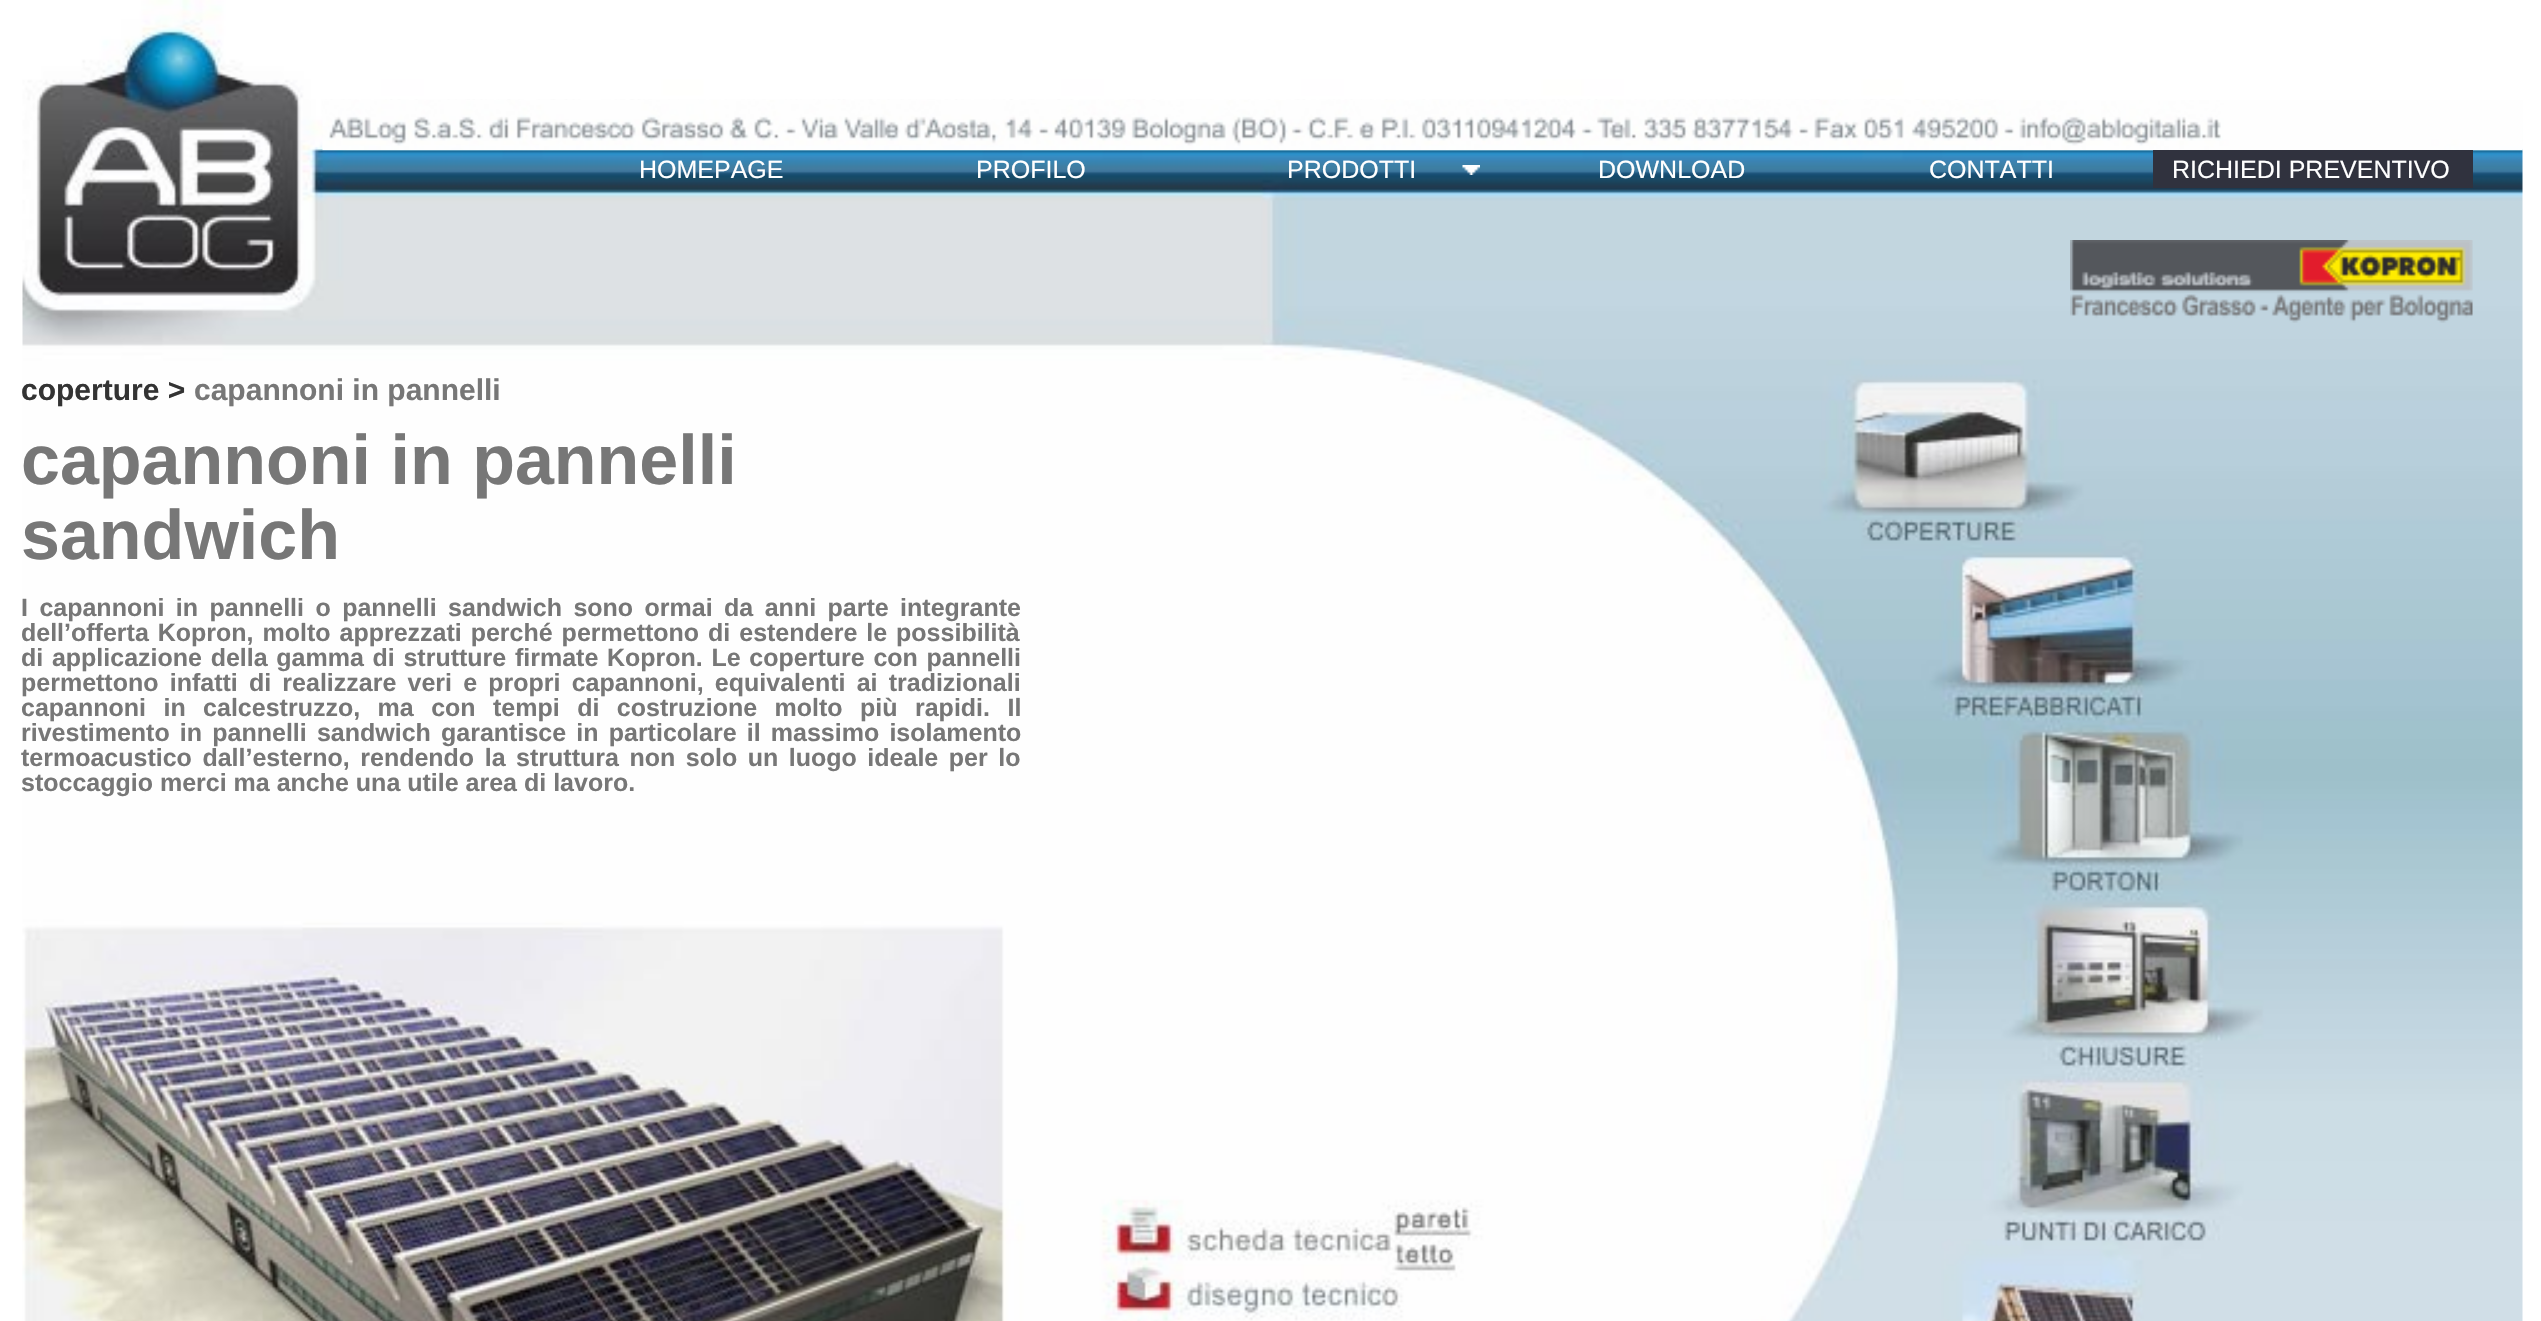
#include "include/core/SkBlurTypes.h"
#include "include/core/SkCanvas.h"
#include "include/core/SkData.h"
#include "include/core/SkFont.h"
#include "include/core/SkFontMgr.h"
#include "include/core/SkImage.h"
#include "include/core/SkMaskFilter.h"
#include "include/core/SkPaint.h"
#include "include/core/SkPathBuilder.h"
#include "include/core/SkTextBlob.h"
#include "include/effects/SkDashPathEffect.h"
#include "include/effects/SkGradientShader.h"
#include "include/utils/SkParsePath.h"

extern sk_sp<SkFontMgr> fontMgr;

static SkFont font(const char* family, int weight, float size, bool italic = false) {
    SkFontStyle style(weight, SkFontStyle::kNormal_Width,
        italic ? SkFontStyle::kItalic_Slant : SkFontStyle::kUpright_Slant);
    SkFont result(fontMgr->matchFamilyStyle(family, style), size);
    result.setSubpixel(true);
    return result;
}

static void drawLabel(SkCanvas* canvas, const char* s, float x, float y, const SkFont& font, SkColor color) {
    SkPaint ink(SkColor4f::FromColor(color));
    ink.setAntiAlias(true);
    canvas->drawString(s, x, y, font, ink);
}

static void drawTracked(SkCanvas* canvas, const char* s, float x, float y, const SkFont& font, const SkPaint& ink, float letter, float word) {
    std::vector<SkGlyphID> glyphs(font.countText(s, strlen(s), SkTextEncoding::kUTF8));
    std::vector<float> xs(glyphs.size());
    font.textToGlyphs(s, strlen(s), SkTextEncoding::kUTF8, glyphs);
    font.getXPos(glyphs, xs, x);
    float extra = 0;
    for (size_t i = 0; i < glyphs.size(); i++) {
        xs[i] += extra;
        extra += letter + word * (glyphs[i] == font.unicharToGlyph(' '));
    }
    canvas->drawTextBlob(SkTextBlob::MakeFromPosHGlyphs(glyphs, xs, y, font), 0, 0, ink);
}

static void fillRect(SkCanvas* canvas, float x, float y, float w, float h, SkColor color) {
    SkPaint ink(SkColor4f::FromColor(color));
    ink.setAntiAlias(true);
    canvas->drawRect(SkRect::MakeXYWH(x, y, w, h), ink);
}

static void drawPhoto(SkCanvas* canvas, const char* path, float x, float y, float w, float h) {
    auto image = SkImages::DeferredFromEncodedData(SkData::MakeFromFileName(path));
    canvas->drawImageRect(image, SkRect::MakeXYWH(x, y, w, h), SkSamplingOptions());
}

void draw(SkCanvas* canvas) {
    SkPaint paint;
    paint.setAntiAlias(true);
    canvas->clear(0xFFFFFFFF);
    drawPhoto(canvas, "assets/img1.png", 22, 0, 2501, 1321);
    drawPhoto(canvas, "assets/img2.png", 322, 100, 2201, 50);
    SkFont font1 = font("Liberation Sans", 400, 25);
    drawLabel(canvas, "HOMEPAGE", 639, 178, font1, 0xFFFFFFFF);
    drawLabel(canvas, "PROFILO", 976, 178, font1, 0xFFFFFFFF);
    drawPhoto(canvas, "assets/img3.png", 1462, 165, 18, 10);
    drawLabel(canvas, "PRODOTTI", 1287, 178, font1, 0xFFFFFFFF);
    drawLabel(canvas, "DOWNLOAD", 1598, 178, font1, 0xFFFFFFFF);
    drawLabel(canvas, "CONTATTI", 1929, 178, font1, 0xFFFFFFFF);
    fillRect(canvas, 2153, 150, 320, 38, 0xFF30323E);
    drawLabel(canvas, "RICHIEDI PREVENTIVO", 2172, 178, font1, 0xFFFFFFFF);
    drawPhoto(canvas, "assets/img4.png", 2070, 240, 403, 83);
    SkFont font2 = font("Liberation Sans", 700, 30);
    drawLabel(canvas, "coperture >", 21, 400, font2, 0xFF333333);
    drawLabel(canvas, "capannoni in pannelli", 194, 400, font2, 0xFF777777);
    SkFont font3 = font("Liberation Sans", 700, 70);
    drawLabel(canvas, "capannoni in pannelli", 21, 484, font3, 0xFF777777);
    drawLabel(canvas, "sandwich", 21, 559, font3, 0xFF777777);
    SkFont font4 = font("Liberation Sans", 700, 25);
    paint.setColor(0xFF777777);
    drawTracked(canvas, "I capannoni in pannelli o pannelli sandwich sono ormai da anni parte integrante", 21, 616, font4, paint, 0, 4.5f);
    drawTracked(canvas, "dell’offerta Kopron, molto apprezzati perché permettono di estendere le possibilità", 21, 641, font4, paint, 0, 2);
    drawTracked(canvas, "di applicazione della gamma di strutture firmate Kopron. Le coperture con pannelli", 21, 666, font4, paint, 0, 1.75f);
    drawTracked(canvas, "permettono infatti di realizzare veri e propri capannoni, equivalenti ai tradizionali", 21, 691, font4, paint, 0, 4.25f);
    drawTracked(canvas, "capannoni in calcestruzzo, ma con tempi di costruzione molto più rapidi. Il", 21, 716, font4, paint, 0, 10.5f);
    drawTracked(canvas, "rivestimento in pannelli sandwich garantisce in particolare il massimo isolamento", 21, 741, font4, paint, 0, 3.25f);
    drawTracked(canvas, "termoacustico dall’esterno, rendendo la struttura non solo un luogo ideale per lo", 21, 766, font4, paint, 0, 3.6f);
    drawLabel(canvas, "stoccaggio merci ma anche una utile area di lavoro.", 21, 791, font4, 0xFF777777);
}
